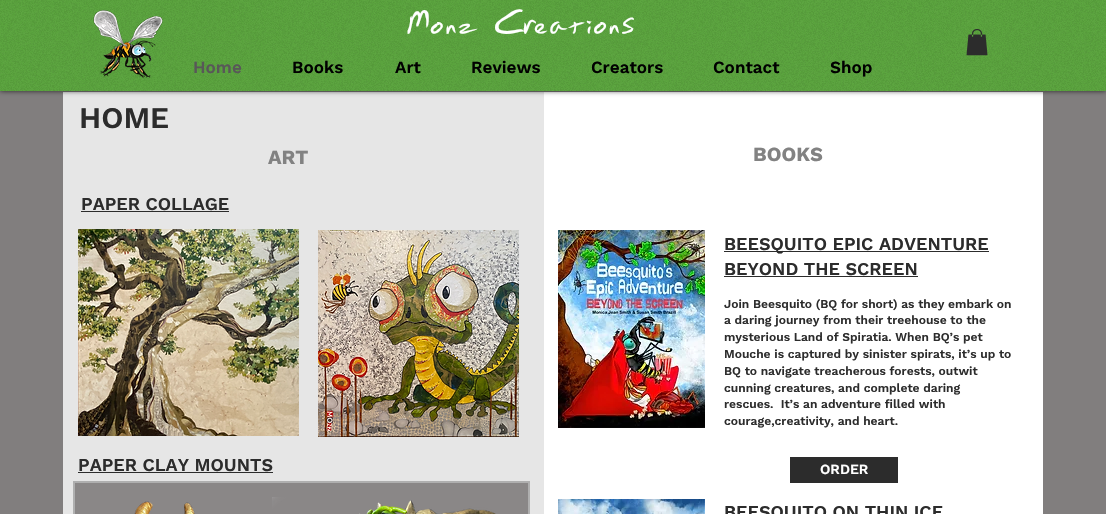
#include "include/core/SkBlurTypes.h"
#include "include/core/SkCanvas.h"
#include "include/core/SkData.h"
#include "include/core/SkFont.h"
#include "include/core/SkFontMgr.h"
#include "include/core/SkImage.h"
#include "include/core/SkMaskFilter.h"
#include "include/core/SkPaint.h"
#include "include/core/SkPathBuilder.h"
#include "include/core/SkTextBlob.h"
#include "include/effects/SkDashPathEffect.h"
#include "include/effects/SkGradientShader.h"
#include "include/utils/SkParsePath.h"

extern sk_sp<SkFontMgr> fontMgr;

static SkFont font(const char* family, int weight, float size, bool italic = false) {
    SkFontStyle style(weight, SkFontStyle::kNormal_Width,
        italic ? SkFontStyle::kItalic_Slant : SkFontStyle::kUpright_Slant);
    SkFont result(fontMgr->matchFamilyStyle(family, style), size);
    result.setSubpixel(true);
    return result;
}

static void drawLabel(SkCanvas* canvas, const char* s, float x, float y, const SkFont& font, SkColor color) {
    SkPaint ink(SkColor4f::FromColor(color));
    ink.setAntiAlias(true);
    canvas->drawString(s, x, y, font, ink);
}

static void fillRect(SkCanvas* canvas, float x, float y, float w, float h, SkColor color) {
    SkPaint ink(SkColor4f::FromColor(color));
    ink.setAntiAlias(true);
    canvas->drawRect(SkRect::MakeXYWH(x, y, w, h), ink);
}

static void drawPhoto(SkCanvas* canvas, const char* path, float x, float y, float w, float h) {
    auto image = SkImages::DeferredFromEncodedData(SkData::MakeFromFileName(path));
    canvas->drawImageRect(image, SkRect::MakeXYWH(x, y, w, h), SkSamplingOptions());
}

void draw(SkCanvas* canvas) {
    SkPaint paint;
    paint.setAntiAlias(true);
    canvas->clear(0xFF817E7E);
    fillRect(canvas, 63, 92, 481, 422, 0xFFE6E6E6);
    fillRect(canvas, 544, 92, 499, 422, 0xFFFFFFFF);
    paint.setColor(0xB3000000);
    paint.setMaskFilter(SkMaskFilter::MakeBlur(kNormal_SkBlurStyle, 2.5f));
    canvas->drawRect(SkRect::MakeXYWH(0, 0, 1106, 91), paint);
    paint.setMaskFilter(nullptr);
    fillRect(canvas, 0, 0, 1106, 91, 0xFF5AA43D);
    drawPhoto(canvas, "assets/img1.png", 0, 0, 1106, 91);
    drawPhoto(canvas, "assets/img2.png", 93, 10, 70, 68);
    SkFont font1 = font("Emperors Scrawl", 700, 30);
    drawLabel(canvas, "Monz Creations", 407, 34, font1, 0xFFFFFFFF);
    drawPhoto(canvas, "assets/img3.png", 966, 29, 22, 27);
    SkFont font2 = font("Work Sans", 600, 17);
    drawLabel(canvas, "Home", 193, 73, font2, 0xFF585858);
    drawLabel(canvas, "Books", 292, 73, font2, 0xFF000000);
    drawLabel(canvas, "Art", 395, 73, font2, 0xFF000000);
    drawLabel(canvas, "Reviews", 471, 73, font2, 0xFF000000);
    drawLabel(canvas, "Creators", 591, 73, font2, 0xFF000000);
    drawLabel(canvas, "Contact", 713, 73, font2, 0xFF000000);
    drawLabel(canvas, "Shop", 830, 73, font2, 0xFF000000);
    SkFont font3 = font("Work Sans", 600, 30);
    drawLabel(canvas, "HOME", 79, 128, font3, 0xFF2C2C2C);
    SkFont font4 = font("Work Sans", 700, 20);
    drawLabel(canvas, "ART", 268, 164, font4, 0xFF828282);
    SkFont font5 = font("Work Sans", 600, 18);
    drawLabel(canvas, "PAPER COLLAGE", 81, 210, font5, 0xFF2C2C2C);
    fillRect(canvas, 81, 211, 148, 1, 0xFF2C2C2C);
    drawPhoto(canvas, "assets/img4.png", 78, 229, 221, 207);
    drawPhoto(canvas, "assets/img5.png", 318, 230, 201, 207);
    drawLabel(canvas, "PAPER CLAY MOUNTS", 78, 471, font5, 0xFF2C2C2C);
    fillRect(canvas, 78, 472, 195, 1, 0xFF2C2C2C);
    paint.setColor(0xFF8A8787);
    canvas->drawRect(SkRect::MakeXYWH(74, 482, 455, 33), paint);
    paint.setStroke(true);
    paint.setStrokeWidth(2);
    paint.setColor(0xFFAFAFAF);
    canvas->drawRect(SkRect::MakeXYWH(74, 482, 455, 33), paint);
    drawPhoto(canvas, "assets/img6.png", 134, 501, 61, 13);
    drawPhoto(canvas, "assets/img7.png", 272, 497, 224, 17);
    drawLabel(canvas, "BOOKS", 753, 161, font4, 0xFF828282);
    drawPhoto(canvas, "assets/img8.png", 558, 230, 147, 198);
    fillRect(canvas, 724, 251, 265, 1, 0xFF2C2C2C);
    drawLabel(canvas, "BEESQUITO EPIC ADVENTURE", 724, 250, font5, 0xFF2C2C2C);
    drawLabel(canvas, "BEYOND THE SCREEN", 724, 275, font5, 0xFF2C2C2C);
    fillRect(canvas, 724, 276, 194, 1, 0xFF2C2C2C);
    SkFont font6 = font("Work Sans", 600, 12);
    drawLabel(canvas, "Join Beesquito (BQ for short) as they embark on", 724, 308, font6, 0xFF2C2C2C);
    drawLabel(canvas, "a daring journey from their treehouse to the", 724, 324, font6, 0xFF2C2C2C);
    drawLabel(canvas, "mysterious Land of Spiratia. When BQ’s pet", 724, 341, font6, 0xFF2C2C2C);
    drawLabel(canvas, "Mouche is captured by sinister spirats, it’s up to", 724, 358, font6, 0xFF2C2C2C);
    drawLabel(canvas, "BQ to navigate treacherous forests, outwit", 724, 375, font6, 0xFF2C2C2C);
    drawLabel(canvas, "cunning creatures, and complete daring", 724, 392, font6, 0xFF2C2C2C);
    drawLabel(canvas, "rescues.  It’s an adventure filled with", 724, 408, font6, 0xFF2C2C2C);
    drawLabel(canvas, "courage,creativity, and heart.", 724, 425, font6, 0xFF2C2C2C);
    fillRect(canvas, 790, 457, 108, 26, 0xFF2C2C2C);
    SkFont font7 = font("Work Sans", 600, 14);
    drawLabel(canvas, "ORDER", 820, 474, font7, 0xFFFFFFFF);
    drawPhoto(canvas, "assets/img9.png", 558, 499, 147, 15);
    drawLabel(canvas, "BEESQUITO ON THIN ICE", 724, 518, font5, 0xFF2C2C2C);
}
